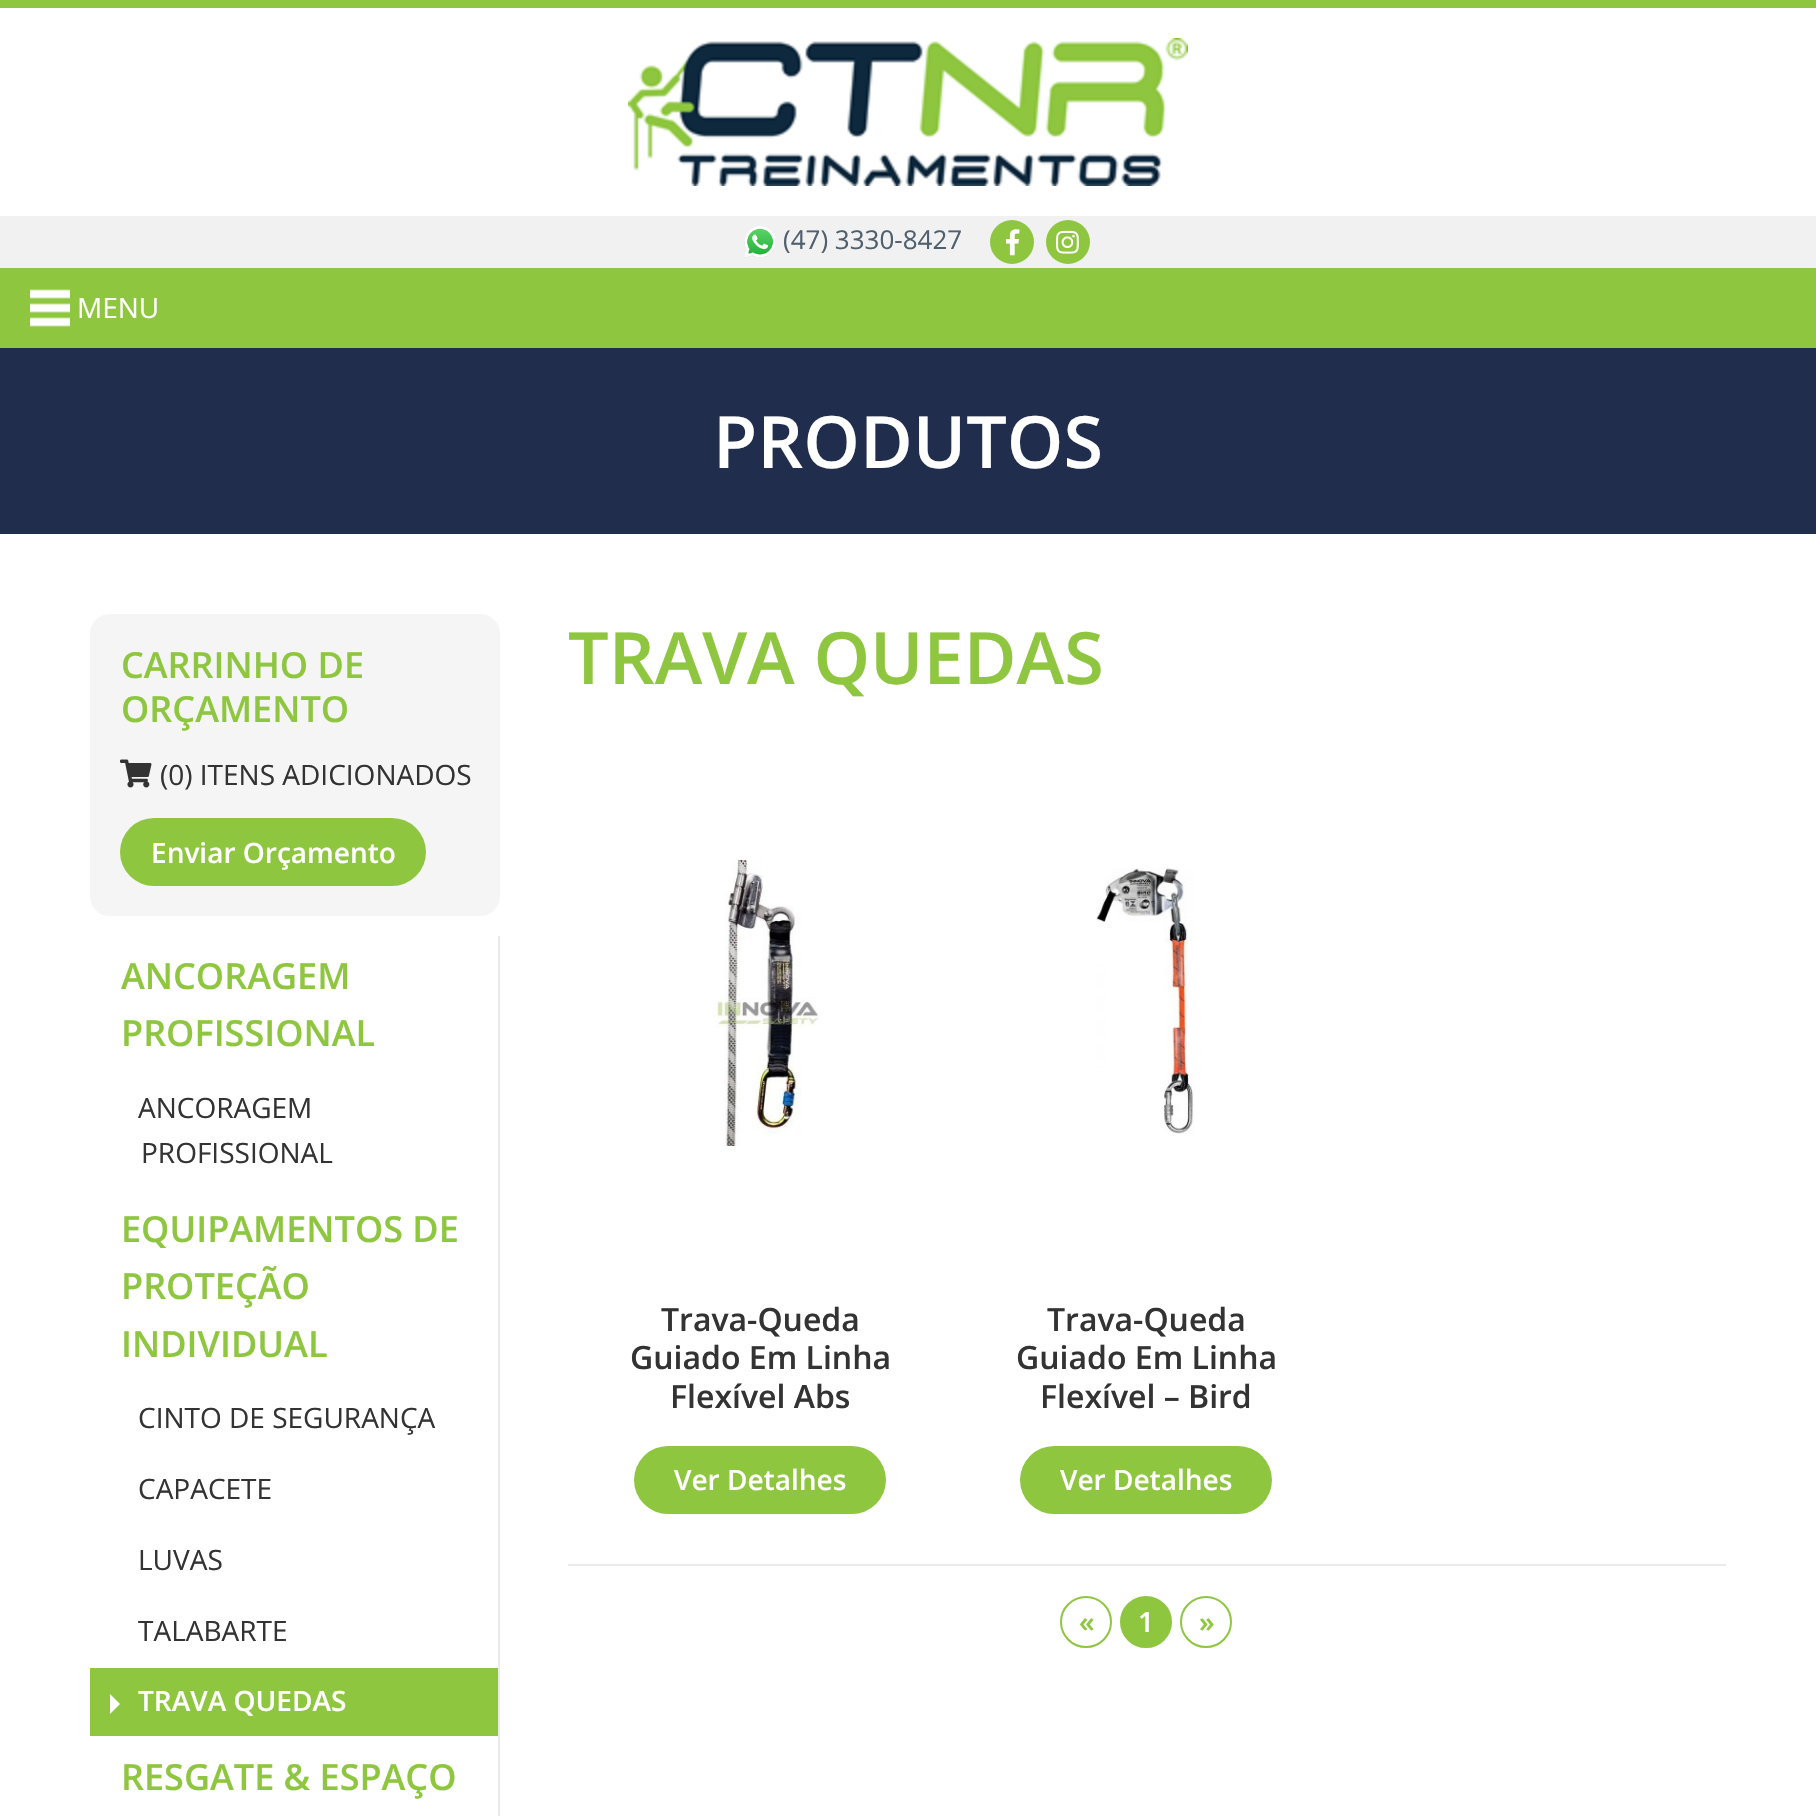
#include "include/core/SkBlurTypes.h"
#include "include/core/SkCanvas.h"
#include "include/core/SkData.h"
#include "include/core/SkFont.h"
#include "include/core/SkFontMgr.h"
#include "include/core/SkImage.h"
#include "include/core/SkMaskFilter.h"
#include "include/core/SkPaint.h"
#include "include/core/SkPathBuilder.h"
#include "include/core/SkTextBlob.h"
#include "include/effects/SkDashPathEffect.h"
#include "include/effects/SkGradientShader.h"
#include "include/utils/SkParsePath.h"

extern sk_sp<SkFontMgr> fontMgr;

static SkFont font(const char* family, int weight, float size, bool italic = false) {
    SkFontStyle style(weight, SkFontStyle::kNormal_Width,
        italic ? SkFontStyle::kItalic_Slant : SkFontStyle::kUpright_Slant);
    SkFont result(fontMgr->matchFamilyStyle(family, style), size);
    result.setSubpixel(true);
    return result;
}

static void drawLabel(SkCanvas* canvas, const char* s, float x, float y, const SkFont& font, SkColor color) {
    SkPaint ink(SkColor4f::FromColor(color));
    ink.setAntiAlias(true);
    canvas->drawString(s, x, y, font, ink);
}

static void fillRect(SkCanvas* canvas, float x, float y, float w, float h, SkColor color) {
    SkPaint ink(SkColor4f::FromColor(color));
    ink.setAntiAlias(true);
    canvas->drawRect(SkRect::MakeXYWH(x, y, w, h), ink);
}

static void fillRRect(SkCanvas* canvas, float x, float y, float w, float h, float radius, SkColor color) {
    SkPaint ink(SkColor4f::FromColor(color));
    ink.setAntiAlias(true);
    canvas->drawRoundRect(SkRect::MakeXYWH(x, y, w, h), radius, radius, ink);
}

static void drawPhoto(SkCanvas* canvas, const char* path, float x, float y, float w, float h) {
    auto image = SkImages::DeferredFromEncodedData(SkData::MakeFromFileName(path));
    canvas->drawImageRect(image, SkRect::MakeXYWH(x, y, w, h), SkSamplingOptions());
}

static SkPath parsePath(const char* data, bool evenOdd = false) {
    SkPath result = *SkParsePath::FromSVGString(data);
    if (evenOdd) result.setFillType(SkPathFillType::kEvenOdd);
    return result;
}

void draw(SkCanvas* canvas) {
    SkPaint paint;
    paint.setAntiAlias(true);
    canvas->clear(0xFFFFFFFF);
    fillRect(canvas, 0, 0, 1816, 8, 0xFF8EC640);
    drawPhoto(canvas, "assets/img1.png", 628, 38, 560, 148);
    fillRect(canvas, 0, 216, 1816, 52, 0xFFF1F1F1);
    drawPhoto(canvas, "assets/img2.png", 744, 226, 31, 32);
    SkFont font1 = font("Open Sans", 400, 26);
    drawLabel(canvas, "(47) 3330-8427", 783, 249, font1, 0xFF4E5F6E);
    paint.setColor(0xFF8EC640);
    canvas->drawCircle(1012, 242, 22, paint);
    drawPhoto(canvas, "assets/img3.png", 1006, 229, 14, 27);
    canvas->drawCircle(1068, 242, 22, paint);
    drawPhoto(canvas, "assets/img4.png", 1056, 230, 23, 24);
    fillRect(canvas, 0, 268, 1816, 80, 0xFF8EC640);
    drawPhoto(canvas, "assets/img5.png", 30, 289, 40, 38);
    SkFont font2 = font("Open Sans", 400, 28);
    drawLabel(canvas, "MENU", 77, 318, font2, 0xFFFFFFFF);
    fillRect(canvas, 0, 348, 1816, 186, 0xFF202D4C);
    SkFont font3 = font("Open Sans", 600, 72);
    drawLabel(canvas, "PRODUTOS", 713, 468, font3, 0xFFFFFFFF);
    fillRRect(canvas, 90, 614, 410, 302, 20, 0xFFF5F5F5);
    SkFont font4 = font("Open Sans", 600, 36);
    drawLabel(canvas, "CARRINHO DE", 121, 678, font4, 0xFF8EC640);
    drawLabel(canvas, "ORÇAMENTO", 121, 722, font4, 0xFF8EC640);
    drawPhoto(canvas, "assets/img6.png", 120, 759, 32, 29);
    drawLabel(canvas, "(0) ITENS ADICIONADOS", 160, 785, font2, 0xFF333333);
    fillRRect(canvas, 120, 818, 306, 68, 34, 0xFF8EC640);
    SkFont font5 = font("Open Sans", 600, 28);
    drawLabel(canvas, "Enviar Orçamento", 151, 863, font5, 0xFFFFFFFF);
    fillRect(canvas, 498, 936, 2, 880, 0xFFEAEAEA);
    drawLabel(canvas, "ANCORAGEM", 121, 989, font4, 0xFF8EC640);
    drawLabel(canvas, "PROFISSIONAL", 121, 1046, font4, 0xFF8EC640);
    drawLabel(canvas, "ANCORAGEM", 138, 1118, font2, 0xFF333333);
    drawLabel(canvas, "PROFISSIONAL", 141, 1163, font2, 0xFF333333);
    drawLabel(canvas, "EQUIPAMENTOS DE", 121, 1242, font4, 0xFF8EC640);
    drawLabel(canvas, "PROTEÇÃO", 121, 1299, font4, 0xFF8EC640);
    drawLabel(canvas, "INDIVIDUAL", 121, 1357, font4, 0xFF8EC640);
    drawLabel(canvas, "CINTO DE SEGURANÇA", 138, 1428, font2, 0xFF333333);
    drawLabel(canvas, "CAPACETE", 138, 1499, font2, 0xFF333333);
    drawLabel(canvas, "LUVAS", 138, 1570, font2, 0xFF333333);
    drawLabel(canvas, "TALABARTE", 138, 1641, font2, 0xFF333333);
    fillRect(canvas, 90, 1668, 408, 68, 0xFF8EC640);
    paint.setColor(0xFFFFFFFF);
    canvas->drawPath(parsePath("M110 1714V1694L120 1704Z"), paint);
    drawLabel(canvas, "TRAVA QUEDAS", 138, 1711, font5, 0xFFFFFFFF);
    drawLabel(canvas, "RESGATE & ESPAÇO", 121, 1790, font4, 0xFF8EC640);
    drawLabel(canvas, "TRAVA QUEDAS", 568, 684, font3, 0xFF8EC640);
    drawPhoto(canvas, "assets/img7.png", 710, 860, 113, 286);
    SkFont font6 = font("Open Sans", 600, 32);
    drawLabel(canvas, "Trava-Queda", 661, 1331, font6, 0xFF333333);
    drawLabel(canvas, "Guiado Em Linha", 630, 1369, font6, 0xFF333333);
    drawLabel(canvas, "Flexível Abs", 670, 1408, font6, 0xFF333333);
    fillRRect(canvas, 634, 1446, 252, 68, 34, 0xFF8EC640);
    drawLabel(canvas, "Ver Detalhes", 674, 1490, font5, 0xFFFFFFFF);
    drawPhoto(canvas, "assets/img8.png", 1096, 868, 99, 266);
    drawLabel(canvas, "Trava-Queda", 1047, 1331, font6, 0xFF333333);
    drawLabel(canvas, "Guiado Em Linha", 1016, 1369, font6, 0xFF333333);
    drawLabel(canvas, "Flexível – Bird", 1040, 1408, font6, 0xFF333333);
    fillRRect(canvas, 1020, 1446, 252, 68, 34, 0xFF8EC640);
    drawLabel(canvas, "Ver Detalhes", 1060, 1490, font5, 0xFFFFFFFF);
    fillRect(canvas, 568, 1564, 1158, 2, 0xFFEAEAEA);
    paint.setStroke(true);
    paint.setStrokeWidth(2);
    paint.setColor(0xFF8EC640);
    canvas->drawCircle(1086, 1622, 25, paint);
    drawLabel(canvas, "«", 1079, 1632, font5, 0xFF8EC640);
    paint.setStroke(false);
    canvas->drawCircle(1146, 1622, 25, paint);
    paint.setStroke(true);
    canvas->drawCircle(1146, 1622, 25, paint);
    drawLabel(canvas, "1", 1138, 1632, font5, 0xFFFFFFFF);
    canvas->drawCircle(1206, 1622, 25, paint);
    drawLabel(canvas, "»", 1199, 1632, font5, 0xFF8EC640);
}
